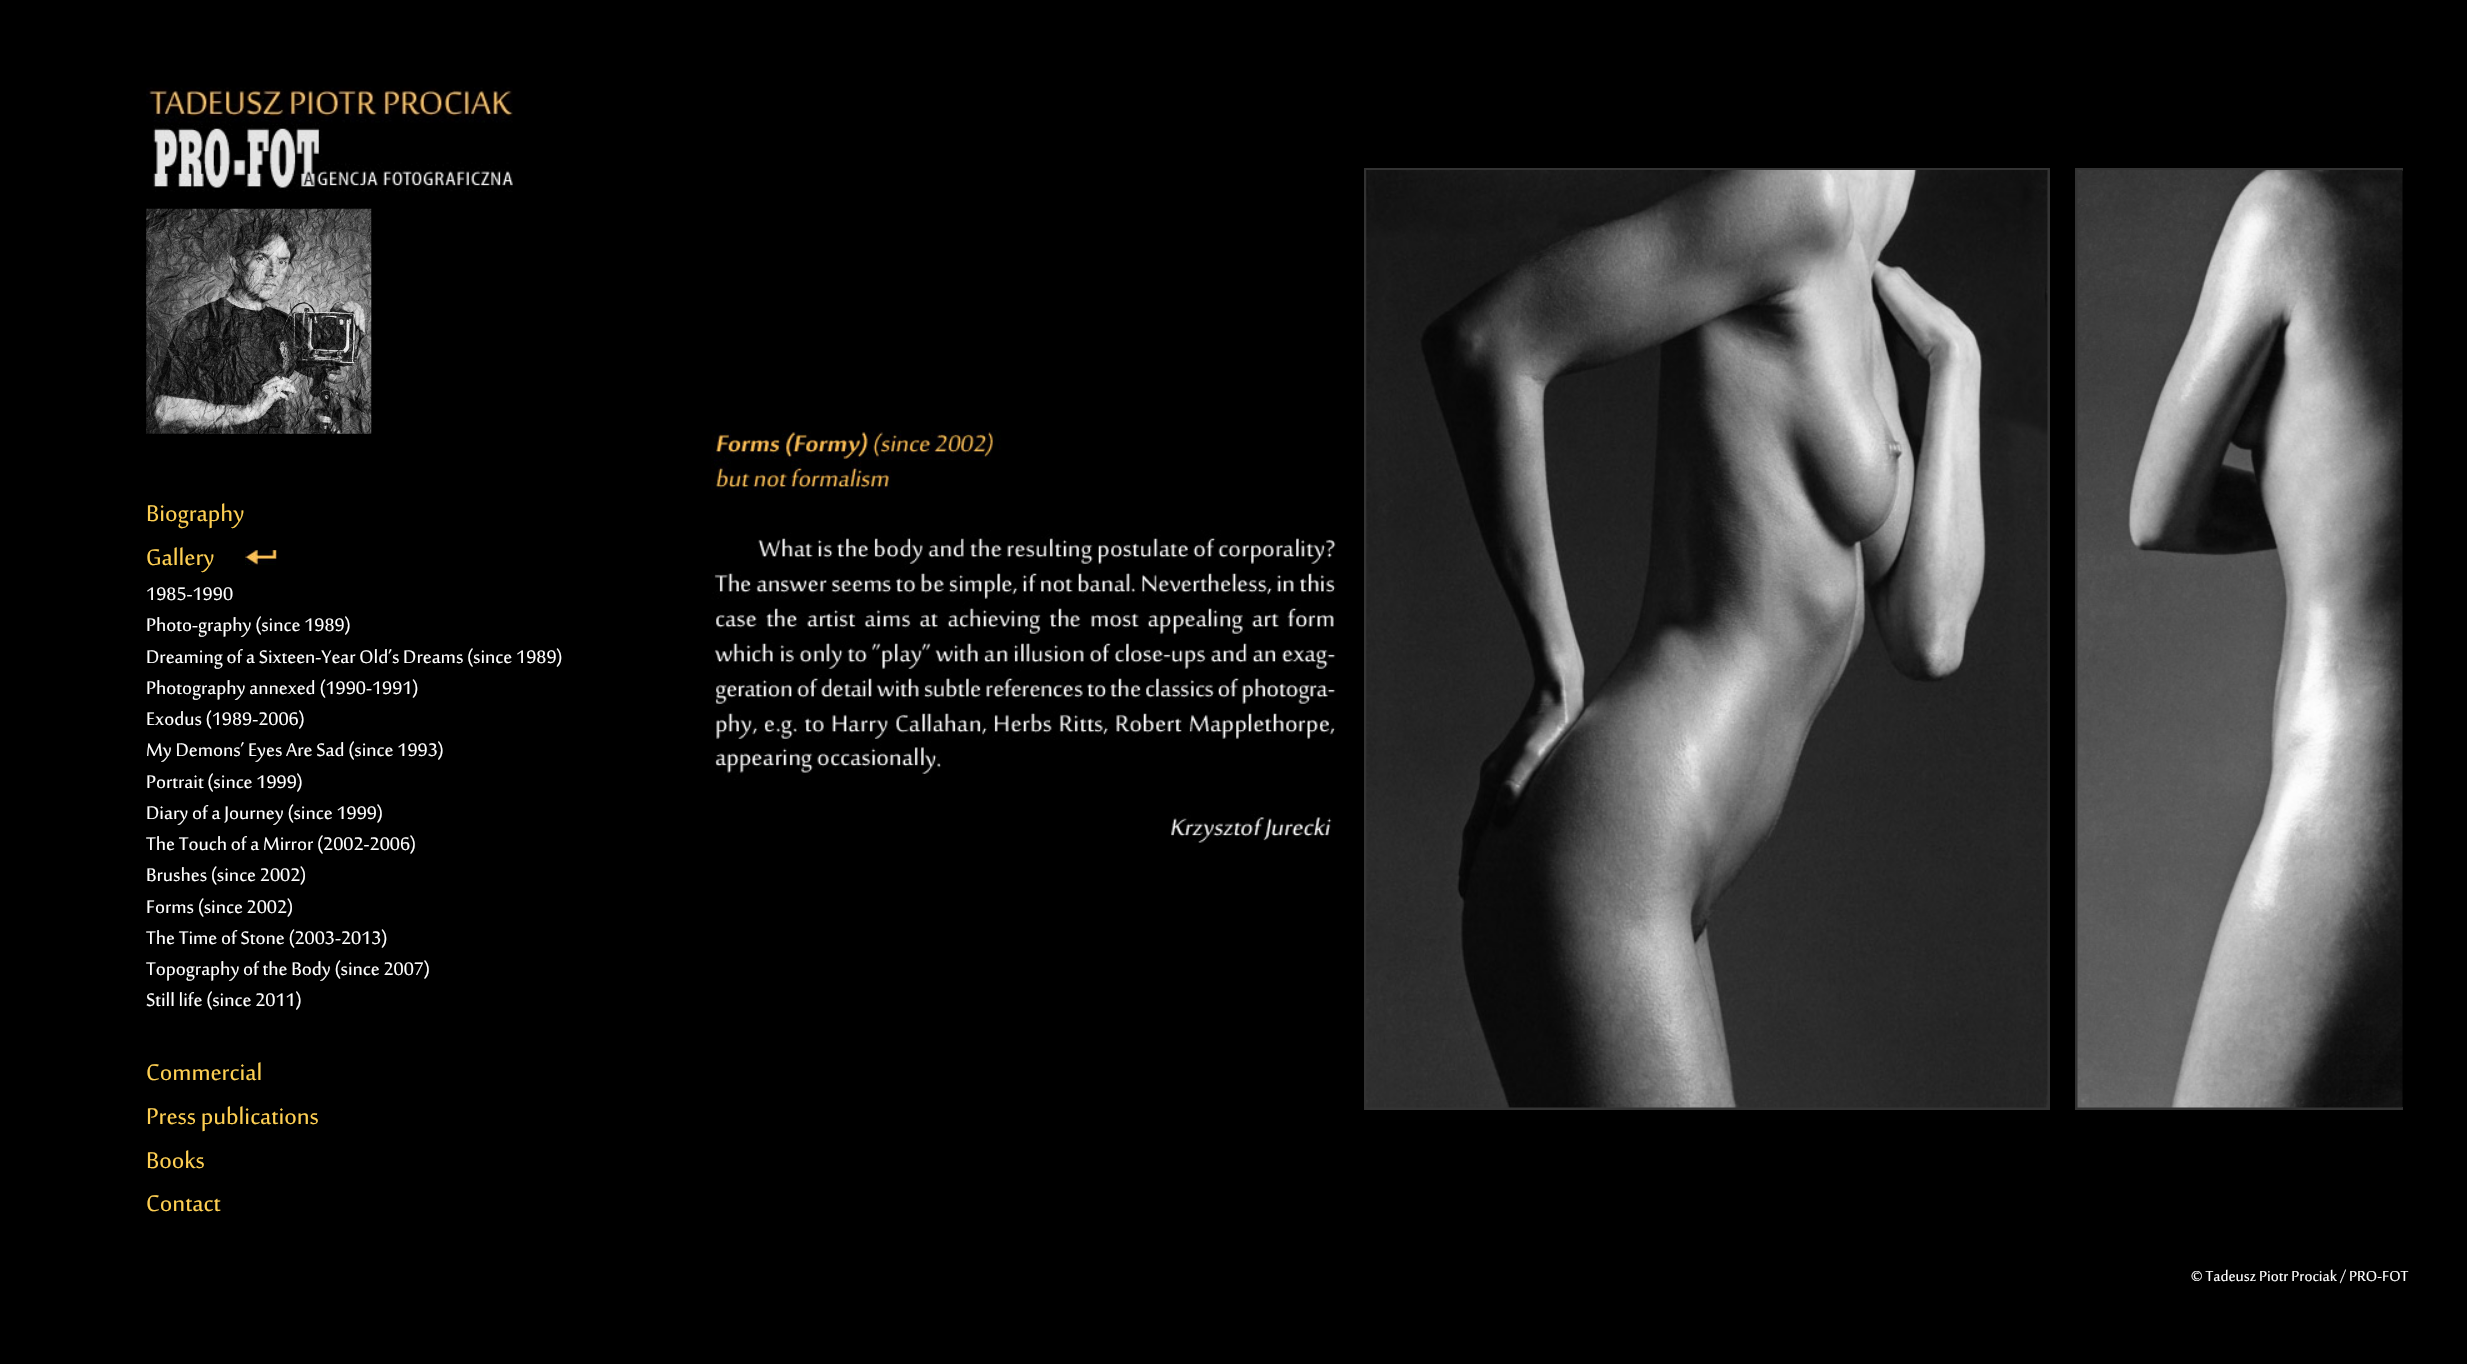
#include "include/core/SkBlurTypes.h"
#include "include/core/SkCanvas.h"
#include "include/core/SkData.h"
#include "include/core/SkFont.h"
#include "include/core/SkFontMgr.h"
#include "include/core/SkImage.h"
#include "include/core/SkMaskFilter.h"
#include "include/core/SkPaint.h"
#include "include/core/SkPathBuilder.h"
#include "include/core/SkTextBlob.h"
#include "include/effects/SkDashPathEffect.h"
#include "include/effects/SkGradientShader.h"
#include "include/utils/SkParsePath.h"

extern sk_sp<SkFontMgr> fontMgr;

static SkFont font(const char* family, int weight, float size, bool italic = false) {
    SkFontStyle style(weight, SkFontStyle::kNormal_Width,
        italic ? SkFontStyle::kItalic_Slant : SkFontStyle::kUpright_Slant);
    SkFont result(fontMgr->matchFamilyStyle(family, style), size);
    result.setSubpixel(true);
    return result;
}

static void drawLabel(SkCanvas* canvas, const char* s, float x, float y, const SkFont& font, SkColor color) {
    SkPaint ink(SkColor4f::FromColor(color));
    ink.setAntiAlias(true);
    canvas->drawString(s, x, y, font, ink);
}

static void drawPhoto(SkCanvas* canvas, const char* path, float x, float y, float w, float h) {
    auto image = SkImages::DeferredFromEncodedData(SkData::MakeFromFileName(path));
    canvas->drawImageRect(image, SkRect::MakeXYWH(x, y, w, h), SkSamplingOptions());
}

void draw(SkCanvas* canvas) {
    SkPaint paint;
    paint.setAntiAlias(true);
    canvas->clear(0xFF000000);
    drawPhoto(canvas, "assets/img1.png", 146, 87, 367, 105);
    drawPhoto(canvas, "assets/img2.png", 146, 208, 226, 226);
    SkFont font1 = font("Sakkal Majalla", 400, 31.25f);
    drawLabel(canvas, "Biography", 146, 521, font1, 0xFFFECF52);
    drawLabel(canvas, "Gallery", 146, 565, font1, 0xFFFECF52);
    drawPhoto(canvas, "assets/img3.png", 245, 550, 32, 15);
    SkFont font2 = font("Sakkal Majalla", 400, 25);
    drawLabel(canvas, "1985-1990", 146, 600, font2, 0xFFFFFFFF);
    drawLabel(canvas, "Photo-graphy (since 1989)", 146, 631, font2, 0xFFFFFFFF);
    drawLabel(canvas, "Dreaming of a Sixteen-Year Old’s Dreams (since 1989)", 146, 663, font2, 0xFFFFFFFF);
    drawLabel(canvas, "Photography annexed (1990-1991)", 146, 694, font2, 0xFFFFFFFF);
    drawLabel(canvas, "Exodus (1989-2006)", 146, 725, font2, 0xFFFFFFFF);
    drawLabel(canvas, "My Demons’ Eyes Are Sad (since 1993)", 146, 756, font2, 0xFFFFFFFF);
    drawLabel(canvas, "Portrait (since 1999)", 146, 788, font2, 0xFFFFFFFF);
    drawLabel(canvas, "Diary of a Journey (since 1999)", 146, 819, font2, 0xFFFFFFFF);
    drawLabel(canvas, "The Touch of a Mirror (2002-2006)", 146, 850, font2, 0xFFFFFFFF);
    drawLabel(canvas, "Brushes (since 2002)", 146, 881, font2, 0xFFFFFFFF);
    drawLabel(canvas, "Forms (since 2002)", 146, 913, font2, 0xFFFFFFFF);
    drawLabel(canvas, "The Time of Stone (2003-2013)", 146, 944, font2, 0xFFFFFFFF);
    drawLabel(canvas, "Topography of the Body (since 2007)", 146, 975, font2, 0xFFFFFFFF);
    drawLabel(canvas, "Still life (since 2011)", 146, 1006, font2, 0xFFFFFFFF);
    drawLabel(canvas, "Commercial", 146, 1080, font1, 0xFFFECF52);
    drawLabel(canvas, "Press publications", 146, 1124, font1, 0xFFFECF52);
    drawLabel(canvas, "Books", 146, 1168, font1, 0xFFFECF52);
    drawLabel(canvas, "Contact", 146, 1211, font1, 0xFFFECF52);
    paint.setStroke(true);
    paint.setStrokeWidth(3);
    paint.setColor(0xFF333333);
    canvas->drawRect(SkRect::MakeXYWH(1365.5f, 169.5f, 683, 939), paint);
    canvas->save();
    canvas->clipRect(SkRect::MakeXYWH(703, 168, 1700, 1056));
    canvas->drawRect(SkRect::MakeXYWH(2076.5f, 169.5f, 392, 939), paint);
    canvas->restore();
    drawPhoto(canvas, "assets/img4.png", 711, 430, 625, 413);
    drawPhoto(canvas, "assets/img5.png", 1366, 170, 682, 938);
    drawPhoto(canvas, "assets/img6.png", 2077, 170, 326, 938);
    SkFont font3 = font("Sakkal Majalla", 400, 20);
    drawLabel(canvas, "© Tadeusz Piotr Prociak / PRO-FOT", 2191, 1281, font3, 0xFFFFFFFF);
}
